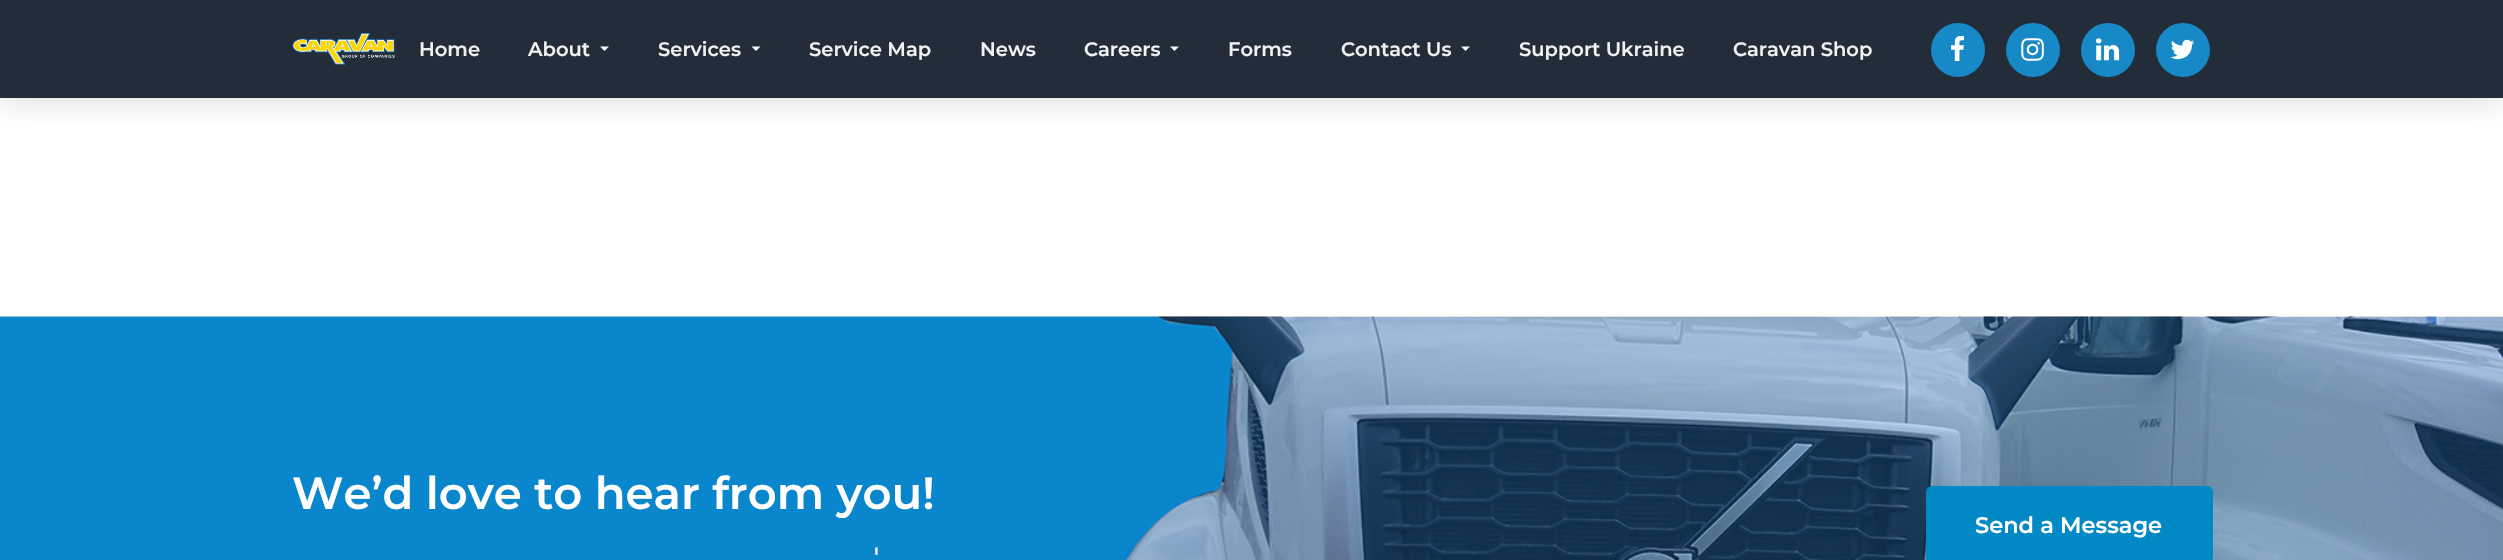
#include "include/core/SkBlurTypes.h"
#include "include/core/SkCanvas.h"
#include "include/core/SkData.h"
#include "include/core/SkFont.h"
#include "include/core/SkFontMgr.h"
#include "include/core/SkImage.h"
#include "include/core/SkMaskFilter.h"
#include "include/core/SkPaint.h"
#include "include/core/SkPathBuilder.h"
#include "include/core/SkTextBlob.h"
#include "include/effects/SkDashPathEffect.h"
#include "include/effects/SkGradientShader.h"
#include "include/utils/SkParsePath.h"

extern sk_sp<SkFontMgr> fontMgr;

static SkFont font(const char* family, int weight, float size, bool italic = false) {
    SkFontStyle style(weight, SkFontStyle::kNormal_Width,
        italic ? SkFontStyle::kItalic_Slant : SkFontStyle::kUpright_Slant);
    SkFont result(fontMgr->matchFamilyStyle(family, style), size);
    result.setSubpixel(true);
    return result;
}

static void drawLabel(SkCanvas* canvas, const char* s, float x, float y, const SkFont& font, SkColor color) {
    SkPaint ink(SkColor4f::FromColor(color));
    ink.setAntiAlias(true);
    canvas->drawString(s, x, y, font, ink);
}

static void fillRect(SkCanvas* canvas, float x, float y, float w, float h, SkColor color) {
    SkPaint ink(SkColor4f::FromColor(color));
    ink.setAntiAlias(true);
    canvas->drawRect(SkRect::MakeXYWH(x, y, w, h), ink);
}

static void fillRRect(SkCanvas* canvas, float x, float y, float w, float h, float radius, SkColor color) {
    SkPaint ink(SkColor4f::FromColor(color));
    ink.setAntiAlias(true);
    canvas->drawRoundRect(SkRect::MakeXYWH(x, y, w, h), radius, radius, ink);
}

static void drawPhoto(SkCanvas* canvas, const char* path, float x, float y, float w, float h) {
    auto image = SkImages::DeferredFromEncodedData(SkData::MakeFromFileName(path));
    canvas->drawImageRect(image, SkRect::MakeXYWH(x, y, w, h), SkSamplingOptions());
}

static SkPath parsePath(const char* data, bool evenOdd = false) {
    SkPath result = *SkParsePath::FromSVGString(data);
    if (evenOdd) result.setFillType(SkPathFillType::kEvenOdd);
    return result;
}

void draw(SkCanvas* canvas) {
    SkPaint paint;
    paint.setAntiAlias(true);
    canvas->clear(0xFFFFFFFF);
    paint.setColor(0x33232C39);
    paint.setMaskFilter(SkMaskFilter::MakeBlur(kNormal_SkBlurStyle, 15));
    canvas->drawRect(SkRect::MakeXYWH(0, 0, 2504, 98), paint);
    paint.setMaskFilter(nullptr);
    fillRect(canvas, 0, 0, 2503, 98, 0xFF232C39);
    drawPhoto(canvas, "assets/img1.png", 292, 33, 103, 32);
    SkFont font1 = font("Montserrat", 100, 19.5f);
    drawLabel(canvas, "Home", 419, 56, font1, 0xFFF0F1F2);
    drawLabel(canvas, "About", 528, 56, font1, 0xFFF0F1F2);
    paint.setColor(0xFFF6F7F8);
    canvas->drawPath(parsePath("M600 46.5H609L604.5 51Z"), paint);
    drawLabel(canvas, "Services", 658, 56, font1, 0xFFF0F1F2);
    canvas->drawPath(parsePath("M751.5 46.5H760.5L756 51Z"), paint);
    drawLabel(canvas, "Service Map", 809, 56, font1, 0xFFF0F1F2);
    drawLabel(canvas, "News", 980, 56, font1, 0xFFF0F1F2);
    drawLabel(canvas, "Careers", 1084, 56, font1, 0xFFF0F1F2);
    canvas->drawPath(parsePath("M1170 46.5H1179L1174.5 51Z"), paint);
    drawLabel(canvas, "Forms", 1228, 56, font1, 0xFFF0F1F2);
    drawLabel(canvas, "Contact Us", 1341, 56, font1, 0xFFF0F1F2);
    canvas->drawPath(parsePath("M1461 46.5H1470L1465.5 51Z"), paint);
    drawLabel(canvas, "Support Ukraine", 1519, 56, font1, 0xFFF0F1F2);
    drawLabel(canvas, "Caravan Shop", 1733, 56, font1, 0xFFF0F1F2);
    paint.setColor(0xFF1689C6);
    canvas->drawCircle(1958, 50, 27, paint);
    drawPhoto(canvas, "assets/img2.png", 1951, 36, 14, 25);
    canvas->drawCircle(2033, 50, 27, paint);
    drawPhoto(canvas, "assets/img3.png", 2021, 38, 23, 23);
    canvas->drawCircle(2108, 50, 27, paint);
    drawPhoto(canvas, "assets/img4.png", 2096, 38, 24, 23);
    canvas->drawCircle(2183, 50, 27, paint);
    drawPhoto(canvas, "assets/img5.png", 2170, 39, 25, 21);
    drawPhoto(canvas, "assets/img6.png", 0, 316, 2503, 244);
    SkFont font2 = font("Montserrat", 100, 45);
    drawLabel(canvas, "We’d love to hear from you!", 292, 509, font2, 0xFFFFFFFF);
    SkFont font3 = font("Hind", 400, 30);
    drawLabel(canvas, "'", 874, 568, font3, 0xFFF6F7F8);
    fillRRect(canvas, 1926, 486, 287, 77, 6, 0xFF0189C5);
    SkFont font4 = font("Montserrat", 100, 22.5f);
    drawLabel(canvas, "Send a Message", 1975, 533, font4, 0xFFFFFFFF);
}
